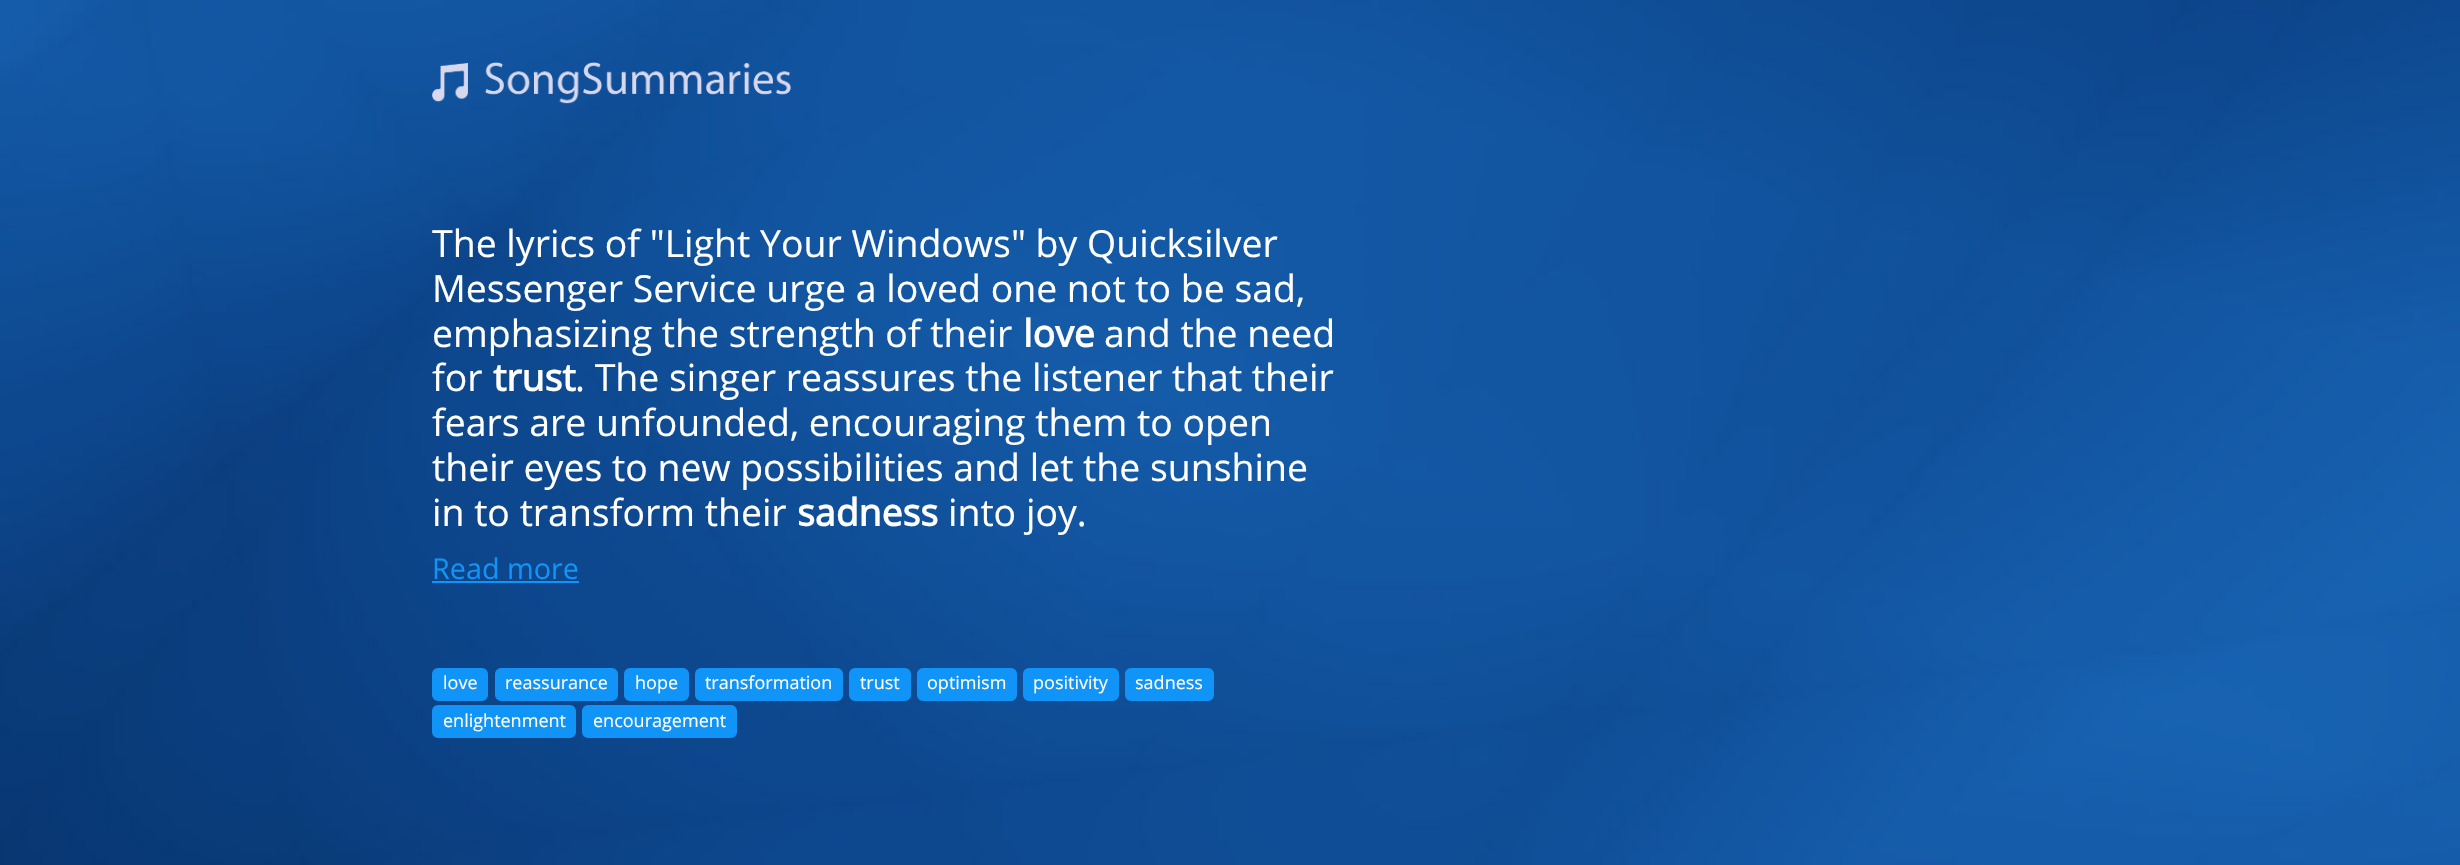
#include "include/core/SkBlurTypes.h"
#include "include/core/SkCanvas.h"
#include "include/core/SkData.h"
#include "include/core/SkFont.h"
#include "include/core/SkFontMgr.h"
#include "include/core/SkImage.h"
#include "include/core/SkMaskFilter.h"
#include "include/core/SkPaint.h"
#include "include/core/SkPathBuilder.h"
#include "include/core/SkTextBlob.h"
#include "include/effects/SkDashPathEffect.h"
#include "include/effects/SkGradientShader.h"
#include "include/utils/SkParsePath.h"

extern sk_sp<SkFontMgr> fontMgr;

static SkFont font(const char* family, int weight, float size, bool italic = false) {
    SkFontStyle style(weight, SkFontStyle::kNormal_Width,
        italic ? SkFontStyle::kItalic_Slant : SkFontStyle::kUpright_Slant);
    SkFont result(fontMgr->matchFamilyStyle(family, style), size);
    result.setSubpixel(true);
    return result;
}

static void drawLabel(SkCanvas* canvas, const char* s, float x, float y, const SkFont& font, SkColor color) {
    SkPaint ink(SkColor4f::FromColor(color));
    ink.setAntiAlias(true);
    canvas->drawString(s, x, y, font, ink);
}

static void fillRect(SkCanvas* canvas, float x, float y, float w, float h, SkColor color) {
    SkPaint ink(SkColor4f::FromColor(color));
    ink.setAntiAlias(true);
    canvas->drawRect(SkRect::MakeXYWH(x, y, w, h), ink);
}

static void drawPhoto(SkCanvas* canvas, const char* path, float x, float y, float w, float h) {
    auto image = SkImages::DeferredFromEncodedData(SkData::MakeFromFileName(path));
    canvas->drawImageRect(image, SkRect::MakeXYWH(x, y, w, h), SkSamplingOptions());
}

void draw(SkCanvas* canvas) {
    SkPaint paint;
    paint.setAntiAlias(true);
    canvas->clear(0xFFFFFFFF);
    drawPhoto(canvas, "assets/img1.png", 0, 0, 2460, 865);
    drawPhoto(canvas, "assets/img2.png", 432, 62, 359, 42);
    SkFont font1 = font("Open Sans", 400, 37.4f);
    drawLabel(canvas, "The lyrics of \"Light Your Windows\" by Quicksilver", 432, 257, font1, 0xFFFFFFFF);
    drawLabel(canvas, "Messenger Service urge a loved one not to be sad,", 432, 302, font1, 0xFFFFFFFF);
    drawLabel(canvas, "emphasizing the strength of their", 432, 347, font1, 0xFFFFFFFF);
    SkFont font2 = font("Open Sans", 700, 37.4f);
    drawLabel(canvas, "love", 1023, 347, font2, 0xFFFFFFFF);
    drawLabel(canvas, "and the need", 1104, 347, font1, 0xFFFFFFFF);
    drawLabel(canvas, "for", 432, 391, font1, 0xFFFFFFFF);
    drawLabel(canvas, "trust", 493, 391, font2, 0xFFFFFFFF);
    drawLabel(canvas, ". The singer reassures the listener that their", 575, 391, font1, 0xFFFFFFFF);
    drawLabel(canvas, "fears are unfounded, encouraging them to open", 432, 436, font1, 0xFFFFFFFF);
    drawLabel(canvas, "their eyes to new possibilities and let the sunshine", 432, 481, font1, 0xFFFFFFFF);
    drawLabel(canvas, "in to transform their", 432, 526, font1, 0xFFFFFFFF);
    drawLabel(canvas, "sadness", 797, 526, font2, 0xFFFFFFFF);
    drawLabel(canvas, "into joy.", 948, 526, font1, 0xFFFFFFFF);
    SkFont font3 = font("Open Sans", 400, 28.75f);
    drawLabel(canvas, "Read more", 432, 579, font3, 0xFF1094F7);
    fillRect(canvas, 432, 581, 147, 2, 0xFF1094F7);
    paint.setColor(0xFF1094F7);
    canvas->drawRoundRect(SkRect::MakeXYWH(433, 669, 54, 31), 5, 5, paint);
    paint.setStroke(true);
    paint.setStrokeWidth(2);
    canvas->drawRoundRect(SkRect::MakeXYWH(433, 669, 54, 31), 5, 5, paint);
    SkFont font4 = font("Open Sans", 400, 18);
    drawLabel(canvas, "love", 443, 689, font4, 0xFFFFFFFF);
    paint.setStroke(false);
    canvas->drawRoundRect(SkRect::MakeXYWH(496, 669, 121, 31), 5, 5, paint);
    paint.setStroke(true);
    canvas->drawRoundRect(SkRect::MakeXYWH(496, 669, 121, 31), 5, 5, paint);
    drawLabel(canvas, "reassurance", 505, 689, font4, 0xFFFFFFFF);
    paint.setStroke(false);
    canvas->drawRoundRect(SkRect::MakeXYWH(625, 669, 63, 31), 5, 5, paint);
    paint.setStroke(true);
    canvas->drawRoundRect(SkRect::MakeXYWH(625, 669, 63, 31), 5, 5, paint);
    drawLabel(canvas, "hope", 635, 689, font4, 0xFFFFFFFF);
    paint.setStroke(false);
    canvas->drawRoundRect(SkRect::MakeXYWH(696, 669, 146, 31), 5, 5, paint);
    paint.setStroke(true);
    canvas->drawRoundRect(SkRect::MakeXYWH(696, 669, 146, 31), 5, 5, paint);
    drawLabel(canvas, "transformation", 705, 689, font4, 0xFFFFFFFF);
    paint.setStroke(false);
    canvas->drawRoundRect(SkRect::MakeXYWH(850, 669, 60, 31), 5, 5, paint);
    paint.setStroke(true);
    canvas->drawRoundRect(SkRect::MakeXYWH(850, 669, 60, 31), 5, 5, paint);
    drawLabel(canvas, "trust", 860, 689, font4, 0xFFFFFFFF);
    paint.setStroke(false);
    canvas->drawRoundRect(SkRect::MakeXYWH(918, 669, 98, 31), 5, 5, paint);
    paint.setStroke(true);
    canvas->drawRoundRect(SkRect::MakeXYWH(918, 669, 98, 31), 5, 5, paint);
    drawLabel(canvas, "optimism", 927, 689, font4, 0xFFFFFFFF);
    paint.setStroke(false);
    canvas->drawRoundRect(SkRect::MakeXYWH(1024, 669, 94, 31), 5, 5, paint);
    paint.setStroke(true);
    canvas->drawRoundRect(SkRect::MakeXYWH(1024, 669, 94, 31), 5, 5, paint);
    drawLabel(canvas, "positivity", 1033, 689, font4, 0xFFFFFFFF);
    paint.setStroke(false);
    canvas->drawRoundRect(SkRect::MakeXYWH(1126, 669, 87, 31), 5, 5, paint);
    paint.setStroke(true);
    canvas->drawRoundRect(SkRect::MakeXYWH(1126, 669, 87, 31), 5, 5, paint);
    drawLabel(canvas, "sadness", 1135, 689, font4, 0xFFFFFFFF);
    paint.setStroke(false);
    canvas->drawRoundRect(SkRect::MakeXYWH(433, 706, 142, 31), 5, 5, paint);
    paint.setStroke(true);
    canvas->drawRoundRect(SkRect::MakeXYWH(433, 706, 142, 31), 5, 5, paint);
    drawLabel(canvas, "enlightenment", 443, 727, font4, 0xFFFFFFFF);
    paint.setStroke(false);
    canvas->drawRoundRect(SkRect::MakeXYWH(583, 706, 153, 31), 5, 5, paint);
    paint.setStroke(true);
    canvas->drawRoundRect(SkRect::MakeXYWH(583, 706, 153, 31), 5, 5, paint);
    drawLabel(canvas, "encouragement", 593, 727, font4, 0xFFFFFFFF);
}
